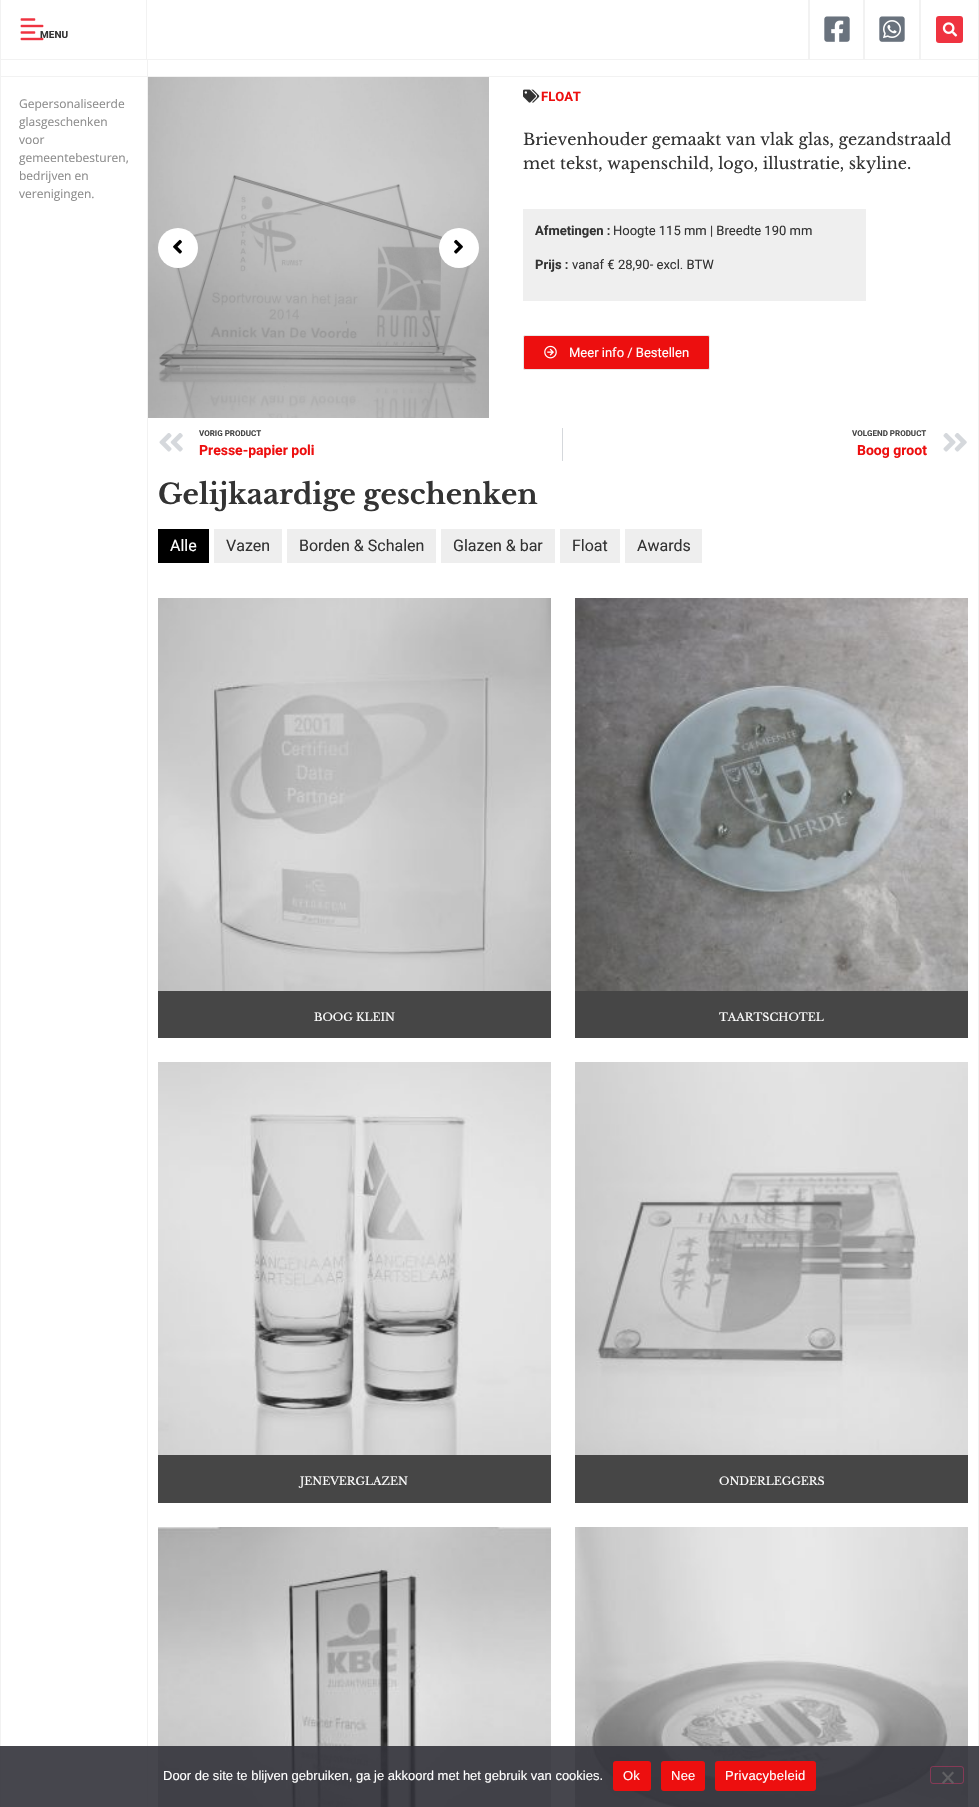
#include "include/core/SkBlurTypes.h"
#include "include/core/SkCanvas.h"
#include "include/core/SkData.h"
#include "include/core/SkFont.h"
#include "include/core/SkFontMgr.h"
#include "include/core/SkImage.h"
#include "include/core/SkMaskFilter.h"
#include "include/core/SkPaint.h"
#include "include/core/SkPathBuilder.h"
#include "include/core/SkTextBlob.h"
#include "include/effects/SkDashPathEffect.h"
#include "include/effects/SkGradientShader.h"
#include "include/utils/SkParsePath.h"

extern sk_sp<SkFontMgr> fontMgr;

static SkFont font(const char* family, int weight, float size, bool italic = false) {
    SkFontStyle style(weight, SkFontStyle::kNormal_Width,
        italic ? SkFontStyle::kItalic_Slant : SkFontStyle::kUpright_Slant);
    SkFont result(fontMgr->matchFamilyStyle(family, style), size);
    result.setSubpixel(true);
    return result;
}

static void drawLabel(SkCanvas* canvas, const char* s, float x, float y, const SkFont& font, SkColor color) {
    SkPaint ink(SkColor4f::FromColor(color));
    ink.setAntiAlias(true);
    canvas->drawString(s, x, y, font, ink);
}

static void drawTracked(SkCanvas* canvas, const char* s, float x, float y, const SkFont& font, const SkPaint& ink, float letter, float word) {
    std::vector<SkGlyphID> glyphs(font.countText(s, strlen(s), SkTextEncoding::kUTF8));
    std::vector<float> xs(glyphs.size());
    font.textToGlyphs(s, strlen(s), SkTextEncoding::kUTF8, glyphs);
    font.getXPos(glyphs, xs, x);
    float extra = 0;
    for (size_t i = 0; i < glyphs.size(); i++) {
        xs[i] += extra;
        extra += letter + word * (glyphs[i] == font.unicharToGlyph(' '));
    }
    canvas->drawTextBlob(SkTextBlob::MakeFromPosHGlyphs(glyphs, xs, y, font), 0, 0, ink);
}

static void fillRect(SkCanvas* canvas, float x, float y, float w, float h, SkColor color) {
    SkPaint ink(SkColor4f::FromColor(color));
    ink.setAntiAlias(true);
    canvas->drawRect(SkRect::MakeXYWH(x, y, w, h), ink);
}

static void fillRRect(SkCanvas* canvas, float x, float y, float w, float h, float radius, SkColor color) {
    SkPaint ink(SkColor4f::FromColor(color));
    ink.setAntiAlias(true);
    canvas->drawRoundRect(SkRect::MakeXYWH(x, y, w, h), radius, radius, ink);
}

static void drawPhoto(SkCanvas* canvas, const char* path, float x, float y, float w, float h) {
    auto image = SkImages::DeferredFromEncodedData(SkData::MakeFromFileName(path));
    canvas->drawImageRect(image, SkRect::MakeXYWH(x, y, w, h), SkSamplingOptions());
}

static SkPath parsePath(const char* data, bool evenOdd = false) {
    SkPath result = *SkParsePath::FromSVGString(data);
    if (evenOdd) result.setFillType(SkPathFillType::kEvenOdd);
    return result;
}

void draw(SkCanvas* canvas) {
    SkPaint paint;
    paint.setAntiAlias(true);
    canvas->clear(0xFFFFFFFF);
    fillRect(canvas, 0, 76, 147, 1, 0xFFF2F2F2);
    fillRect(canvas, 0, 60, 1, 1747, 0xFFF2F2F2);
    fillRect(canvas, 978, 0, 1, 1807, 0xFFF2F2F2);
    fillRect(canvas, 147, 76, 832, 1, 0xFFF2F2F2);
    fillRect(canvas, 147, 60, 1, 1747, 0xFFF2F2F2);
    fillRect(canvas, 808, 0, 1, 60, 0xFFF2F2F2);
    fillRect(canvas, 146, 59, 663, 1, 0xFFF2F2F2);
    fillRect(canvas, 146, 0, 1, 60, 0xFFF2F2F2);
    fillRect(canvas, 863, 0, 1, 60, 0xFFF2F2F2);
    fillRect(canvas, 809, 59, 55, 1, 0xFFF2F2F2);
    fillRect(canvas, 809, 0, 1, 60, 0xFFF2F2F2);
    drawPhoto(canvas, "assets/img1.png", 824, 16, 26, 26);
    fillRect(canvas, 919, 0, 1, 60, 0xFFF2F2F2);
    fillRect(canvas, 864, 59, 115, 1, 0xFFF2F2F2);
    fillRect(canvas, 864, 0, 1, 60, 0xFFF2F2F2);
    drawPhoto(canvas, "assets/img2.png", 879, 16, 26, 26);
    fillRect(canvas, 0, 59, 146, 1, 0xFFF2F2F2);
    fillRect(canvas, 0, 0, 1, 60, 0xFFF2F2F2);
    drawPhoto(canvas, "assets/img3.png", 20, 18, 24, 23);
    SkFont font1 = font("Roboto", 700, 10);
    drawLabel(canvas, "MENU", 40, 38, font1, 0xFF333333);
    fillRect(canvas, 920, 0, 1, 60, 0xFFF2F2F2);
    fillRRect(canvas, 936, 16, 27, 27, 3, 0xFFEF3340);
    drawPhoto(canvas, "assets/img4.png", 942, 22, 16, 15);
    SkFont font2 = font("Open Sans", 400, 12);
    drawLabel(canvas, "Gepersonaliseerde", 19, 108, font2, 0xFF8C8C8C);
    drawLabel(canvas, "glasgeschenken", 19, 126, font2, 0xFF8C8C8C);
    drawLabel(canvas, "voor", 19, 144, font2, 0xFF8C8C8C);
    drawLabel(canvas, "gemeentebesturen,", 19, 162, font2, 0xFF8C8C8C);
    drawLabel(canvas, "bedrijven en", 19, 180, font2, 0xFF8C8C8C);
    drawLabel(canvas, "verenigingen.", 19, 198, font2, 0xFF8C8C8C);
    drawPhoto(canvas, "assets/img5.png", 148, 77, 341, 341);
    paint.setColor(0xFFFFFFFF);
    canvas->drawCircle(178, 248, 20, paint);
    drawPhoto(canvas, "assets/img6.png", 173, 239, 9, 15);
    canvas->drawCircle(459, 248, 20, paint);
    drawPhoto(canvas, "assets/img7.png", 454, 239, 9, 15);
    drawPhoto(canvas, "assets/img8.png", 523, 89, 17, 14);
    SkFont font3 = font("Roboto", 700, 13);
    drawLabel(canvas, "FLOAT", 541, 101, font3, 0xFFED0F0F);
    SkFont font4 = font("Libre Baskerville", 400, 16);
    drawLabel(canvas, "Brievenhouder gemaakt van vlak glas, gezandstraald", 523, 145, font4, 0xFF333333);
    drawLabel(canvas, "met tekst, wapenschild, logo, illustratie, skyline.", 523, 169, font4, 0xFF333333);
    fillRect(canvas, 523, 209, 343, 92, 0xFFEFEFEF);
    drawLabel(canvas, "Afmetingen :", 535, 235, font3, 0xFF333333);
    SkFont font5 = font("Roboto", 400, 13);
    drawLabel(canvas, "Hoogte 115 mm | Breedte 190 mm", 613, 235, font5, 0xFF333333);
    drawLabel(canvas, "Prijs :", 535, 269, font3, 0xFF333333);
    drawLabel(canvas, "vanaf € 28,90- excl. BTW", 572, 269, font5, 0xFF333333);
    paint.setColor(0xFFED0F0F);
    canvas->drawRoundRect(SkRect::MakeXYWH(523.5f, 335.5f, 186, 34), 1.5f, 1.5f, paint);
    paint.setStroke(true);
    paint.setStrokeWidth(1);
    paint.setColor(0xFFE8E8E8);
    canvas->drawRoundRect(SkRect::MakeXYWH(523.5f, 335.5f, 186, 34), 1.5f, 1.5f, paint);
    drawPhoto(canvas, "assets/img9.png", 544, 345, 13, 14);
    drawLabel(canvas, "Meer info / Bestellen", 569, 357, font5, 0xFFFFFFFF);
    drawPhoto(canvas, "assets/img10.png", 159, 433, 24, 19);
    SkFont font6 = font("Roboto", 700, 8);
    drawLabel(canvas, "VORIG PRODUCT", 199, 436, font6, 0xFF464646);
    SkFont font7 = font("Roboto", 700, 14);
    drawLabel(canvas, "Presse-papier poli", 199, 455, font7, 0xFFED0F0F);
    fillRect(canvas, 562, 428, 1, 33, 0xFFD5D8DC);
    drawLabel(canvas, "VOLGEND PRODUCT", 852, 436, font6, 0xFF464646);
    drawLabel(canvas, "Boog groot", 857, 455, font7, 0xFFED0F0F);
    drawPhoto(canvas, "assets/img11.png", 943, 433, 24, 19);
    SkFont font8 = font("Libre Baskerville", 700, 28);
    drawLabel(canvas, "Gelijkaardige geschenken", 158, 504, font8, 0xFF333333);
    fillRect(canvas, 158, 529, 51, 34, 0xFF000000);
    SkFont font9 = font("Roboto", 400, 16);
    drawLabel(canvas, "Alle", 170, 551, font9, 0xFFFFFFFF);
    fillRect(canvas, 214, 529, 68, 34, 0xFFEEEEEE);
    drawLabel(canvas, "Vazen", 226, 551, font9, 0xFF333333);
    fillRect(canvas, 287, 529, 149, 34, 0xFFEEEEEE);
    drawLabel(canvas, "Borden & Schalen", 299, 551, font9, 0xFF333333);
    fillRect(canvas, 441, 529, 114, 34, 0xFFEEEEEE);
    drawLabel(canvas, "Glazen & bar", 453, 551, font9, 0xFF333333);
    fillRect(canvas, 560, 529, 60, 34, 0xFFEEEEEE);
    drawLabel(canvas, "Float", 572, 551, font9, 0xFF333333);
    fillRect(canvas, 625, 529, 77, 34, 0xFFEEEEEE);
    drawLabel(canvas, "Awards", 637, 551, font9, 0xFF333333);
    fillRect(canvas, 158, 991, 393, 47, 0xFF464646);
    drawPhoto(canvas, "assets/img12.png", 158, 598, 393, 393);
    SkFont font10 = font("Libre Baskerville", 400, 11);
    drawLabel(canvas, "BOOG KLEIN", 314, 1021, font10, 0xFFFFFFFF);
    fillRect(canvas, 575, 991, 393, 47, 0xFF464646);
    drawPhoto(canvas, "assets/img13.png", 575, 598, 393, 393);
    drawLabel(canvas, "TAARTSCHOTEL", 719, 1021, font10, 0xFFFFFFFF);
    fillRect(canvas, 158, 1455, 393, 48, 0xFF464646);
    drawPhoto(canvas, "assets/img14.png", 158, 1062, 393, 393);
    drawLabel(canvas, "JENEVERGLAZEN", 300, 1485, font10, 0xFFFFFFFF);
    fillRect(canvas, 575, 1455, 393, 48, 0xFF464646);
    drawPhoto(canvas, "assets/img15.png", 575, 1062, 393, 393);
    drawLabel(canvas, "ONDERLEGGERS", 719, 1485, font10, 0xFFFFFFFF);
    drawPhoto(canvas, "assets/img16.png", 158, 1527, 393, 280);
    drawPhoto(canvas, "assets/img17.png", 575, 1527, 393, 280);
    fillRect(canvas, 0, 1746, 979, 61, 0xE632323A);
    SkFont font11 = font("Liberation Sans", 400, 13);
    drawLabel(canvas, "Door de site te blijven gebruiken, ga je akkoord met het gebruik van cookies.", 163, 1780, font11, 0xFFFFFFFF);
    fillRRect(canvas, 613, 1761, 38, 30, 3, 0xFFED0F0F);
    paint.setStroke(false);
    paint.setColor(0xFFFFFFFF);
    drawTracked(canvas, "Ok", 623, 1780, font11, paint, 0.25f, 0);
    fillRRect(canvas, 661, 1761, 44, 30, 3, 0xFFED0F0F);
    drawTracked(canvas, "Nee", 671, 1780, font11, paint, 0.25f, 0);
    fillRRect(canvas, 715, 1761, 101, 30, 3, 0xFFED0F0F);
    drawTracked(canvas, "Privacybeleid", 725, 1780, font11, paint, 0.25f, 0);
    paint.setStroke(true);
    paint.setColor(0x80CC3366);
    canvas->drawRoundRect(SkRect::MakeXYWH(930.5f, 1766.5f, 33, 17), 2.5f, 2.5f, paint);
    paint.setStroke(false);
    paint.setColor(0xFF606063);
    canvas->drawPath(parsePath("M952.5 1771.5L954 1773L943.5 1784L942 1782.5Z"), paint);
    canvas->drawPath(parsePath("M942 1773L943.5 1771.5L954 1782.5L952.5 1784Z"), paint);
}
